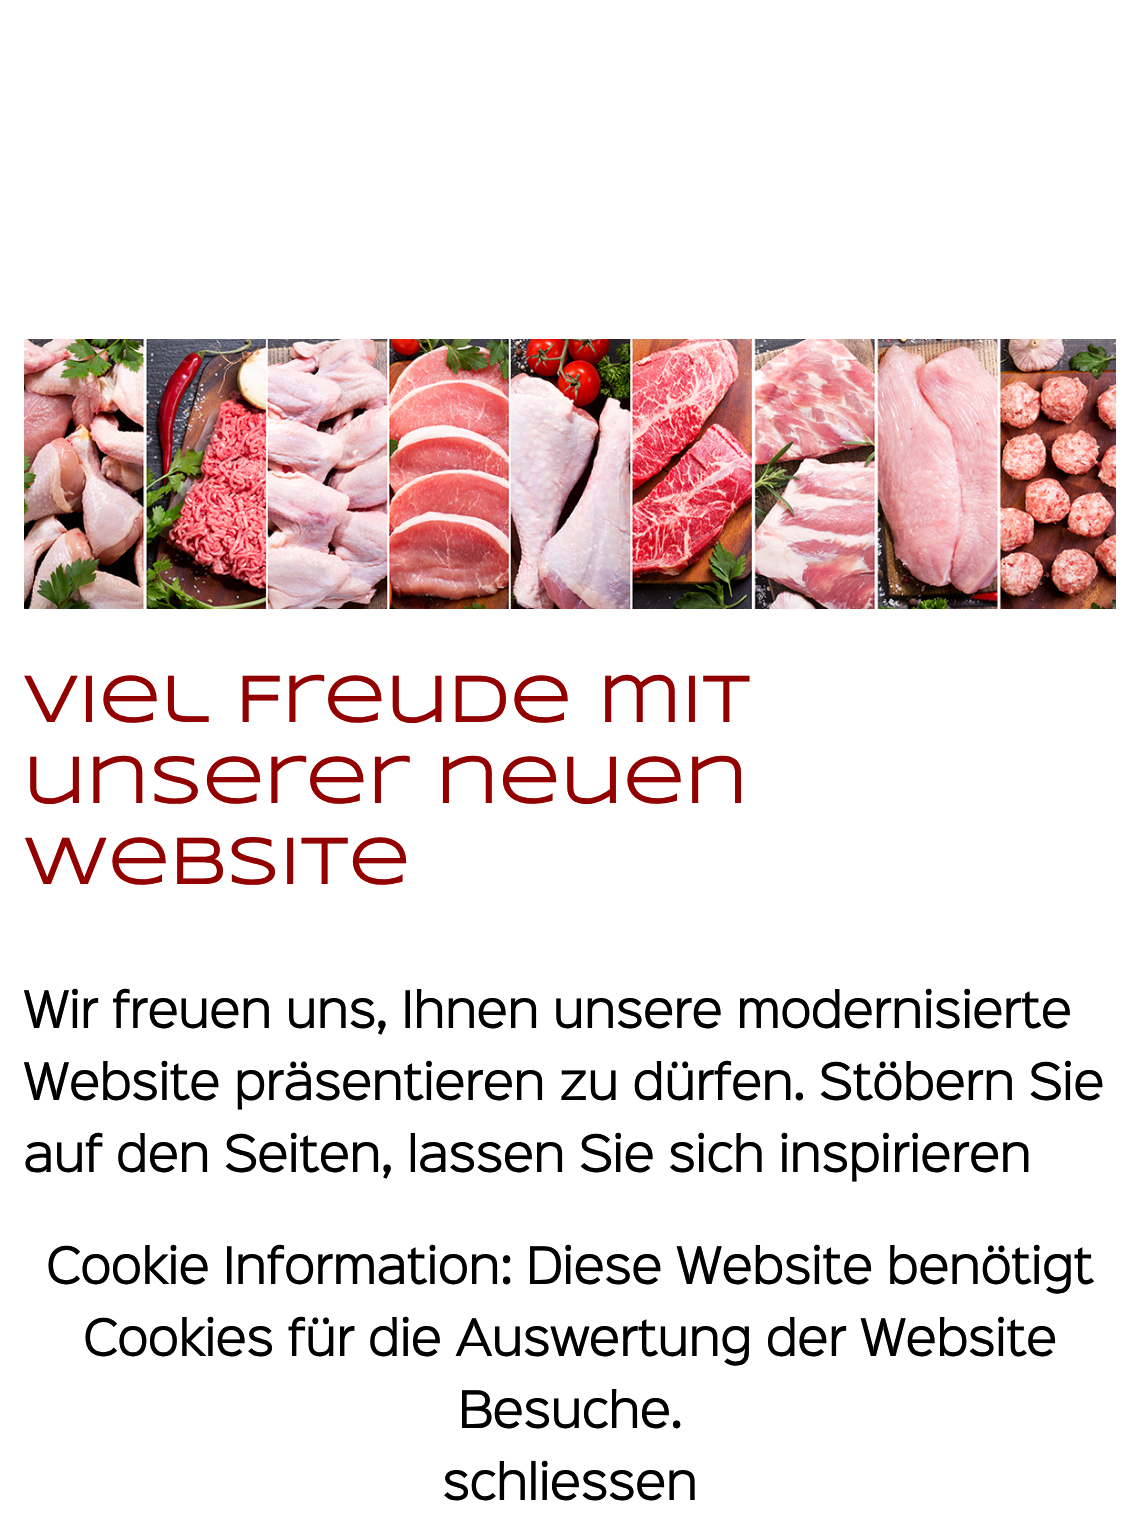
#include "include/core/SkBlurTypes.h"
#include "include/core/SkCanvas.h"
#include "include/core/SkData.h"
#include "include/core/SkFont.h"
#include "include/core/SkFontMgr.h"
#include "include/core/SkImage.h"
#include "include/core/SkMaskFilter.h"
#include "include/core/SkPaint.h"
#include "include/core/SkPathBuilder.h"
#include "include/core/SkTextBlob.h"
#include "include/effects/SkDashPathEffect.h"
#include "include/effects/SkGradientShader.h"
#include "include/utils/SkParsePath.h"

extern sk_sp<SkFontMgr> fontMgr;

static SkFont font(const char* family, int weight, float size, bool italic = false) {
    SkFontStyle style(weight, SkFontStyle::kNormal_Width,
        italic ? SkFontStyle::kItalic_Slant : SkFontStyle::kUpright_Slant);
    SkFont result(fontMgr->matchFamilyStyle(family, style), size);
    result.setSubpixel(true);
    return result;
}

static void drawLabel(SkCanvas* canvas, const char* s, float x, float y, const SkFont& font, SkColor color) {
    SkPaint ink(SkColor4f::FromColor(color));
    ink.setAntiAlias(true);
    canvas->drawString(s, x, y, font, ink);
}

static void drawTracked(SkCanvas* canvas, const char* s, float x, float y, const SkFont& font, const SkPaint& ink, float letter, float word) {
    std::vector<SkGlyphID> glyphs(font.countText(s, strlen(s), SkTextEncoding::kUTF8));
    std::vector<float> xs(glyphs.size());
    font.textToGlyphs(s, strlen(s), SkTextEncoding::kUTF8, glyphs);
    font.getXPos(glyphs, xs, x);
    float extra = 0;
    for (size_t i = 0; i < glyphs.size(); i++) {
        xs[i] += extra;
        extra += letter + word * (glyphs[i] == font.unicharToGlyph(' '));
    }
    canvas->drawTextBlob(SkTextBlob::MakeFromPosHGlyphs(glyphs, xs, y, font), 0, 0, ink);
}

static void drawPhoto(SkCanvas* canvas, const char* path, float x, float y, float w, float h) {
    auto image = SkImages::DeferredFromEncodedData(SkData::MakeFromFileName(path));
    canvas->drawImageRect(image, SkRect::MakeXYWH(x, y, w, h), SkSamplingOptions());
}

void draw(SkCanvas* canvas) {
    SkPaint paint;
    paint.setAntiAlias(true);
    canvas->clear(0xFFFFFFFF);
    drawPhoto(canvas, "assets/img1.png", 24, 339, 1092, 270);
    SkFont font1 = font("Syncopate", 700, 66);
    paint.setColor(0xFF930000);
    drawTracked(canvas, "Viel Freude mit", 23, 722, font1, paint, 1.5f, 0);
    drawTracked(canvas, "unserer neuen", 23, 803, font1, paint, 1.5f, 0);
    drawTracked(canvas, "Website", 23, 884, font1, paint, 1.5f, 0);
    SkFont font2 = font("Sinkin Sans", 700, 45);
    drawLabel(canvas, "Wir freuen uns, Ihnen unsere modernisierte", 23, 1028, font2, 0xFF000000);
    drawLabel(canvas, "Website präsentieren zu dürfen. Stöbern Sie", 23, 1100, font2, 0xFF000000);
    drawLabel(canvas, "auf den Seiten, lassen Sie sich inspirieren", 23, 1172, font2, 0xFF000000);
    drawLabel(canvas, "Cookie Information: Diese Website benötigt", 46, 1284, font2, 0xFF000000);
    drawLabel(canvas, "Cookies für die Auswertung der Website", 83, 1356, font2, 0xFF000000);
    drawLabel(canvas, "Besuche.", 458, 1428, font2, 0xFF000000);
    drawLabel(canvas, "schliessen", 442, 1500, font2, 0xFF000000);
}
